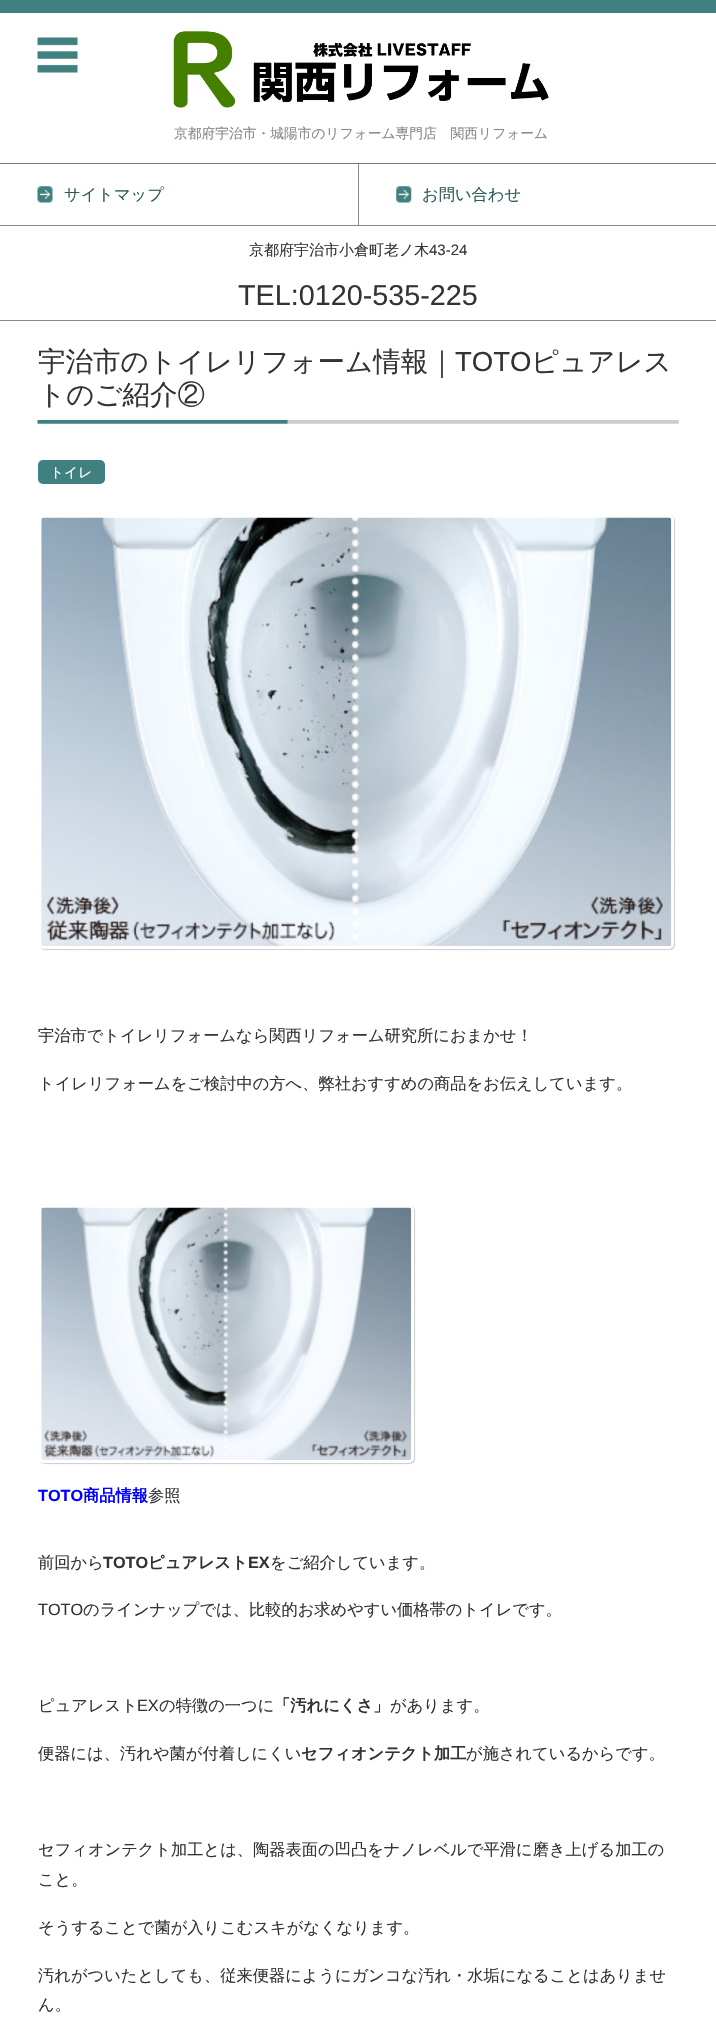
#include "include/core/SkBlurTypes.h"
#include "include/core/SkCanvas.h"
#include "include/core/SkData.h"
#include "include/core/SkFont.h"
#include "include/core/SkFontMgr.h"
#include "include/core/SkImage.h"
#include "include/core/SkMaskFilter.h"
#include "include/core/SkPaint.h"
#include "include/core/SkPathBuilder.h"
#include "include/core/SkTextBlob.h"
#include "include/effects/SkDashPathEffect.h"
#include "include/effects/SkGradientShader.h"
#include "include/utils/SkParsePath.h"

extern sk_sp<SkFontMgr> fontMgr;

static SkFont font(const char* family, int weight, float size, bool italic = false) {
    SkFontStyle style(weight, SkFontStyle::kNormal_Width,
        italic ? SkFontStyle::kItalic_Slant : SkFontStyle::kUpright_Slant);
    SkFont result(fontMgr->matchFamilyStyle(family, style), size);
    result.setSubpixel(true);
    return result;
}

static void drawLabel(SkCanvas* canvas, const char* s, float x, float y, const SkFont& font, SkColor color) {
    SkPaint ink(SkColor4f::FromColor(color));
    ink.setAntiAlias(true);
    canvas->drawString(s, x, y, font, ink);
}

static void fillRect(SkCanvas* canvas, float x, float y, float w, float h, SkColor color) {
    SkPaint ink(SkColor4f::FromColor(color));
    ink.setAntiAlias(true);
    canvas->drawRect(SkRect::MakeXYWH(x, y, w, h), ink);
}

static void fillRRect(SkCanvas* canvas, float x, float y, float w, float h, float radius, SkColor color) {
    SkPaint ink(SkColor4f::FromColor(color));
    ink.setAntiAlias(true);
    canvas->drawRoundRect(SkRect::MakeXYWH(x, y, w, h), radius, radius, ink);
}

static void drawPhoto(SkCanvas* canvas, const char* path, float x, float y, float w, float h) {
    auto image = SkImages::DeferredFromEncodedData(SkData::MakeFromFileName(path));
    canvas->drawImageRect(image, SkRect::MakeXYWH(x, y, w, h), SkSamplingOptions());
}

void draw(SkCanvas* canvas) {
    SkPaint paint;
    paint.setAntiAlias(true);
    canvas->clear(0xFFFFFFFF);
    fillRect(canvas, 0, 0, 716, 13, 0xFF408080);
    drawPhoto(canvas, "assets/img1.png", 37, 37, 41, 36);
    fillRect(canvas, 0, 163, 716, 1, 0xFF777777);
    drawPhoto(canvas, "assets/img2.png", 173, 31, 376, 77);
    SkFont font1 = font("WenQuanYi Zen Hei", 500, 13.75f);
    drawLabel(canvas, "京都府宇治市・城陽市のリフォーム専門店　関西リフォーム", 174, 138, font1, 0xFF888888);
    fillRect(canvas, 0, 225, 716, 1, 0xFF888888);
    drawPhoto(canvas, "assets/img3.png", 37, 186, 16, 17);
    fillRect(canvas, 358, 164, 1, 61, 0xFF888888);
    SkFont font2 = font("WenQuanYi Zen Hei", 500, 16.25f);
    drawLabel(canvas, "サイトマップ", 64, 200, font2, 0xFF2E5A5A);
    drawPhoto(canvas, "assets/img4.png", 396, 186, 16, 17);
    drawLabel(canvas, "お問い合わせ", 422, 200, font2, 0xFF2E5A5A);
    SkFont font3 = font("WenQuanYi Zen Hei", 500, 15);
    drawLabel(canvas, "京都府宇治市小倉町老ノ木", 249, 255, font3, 0xFF333333);
    SkFont font4 = font("Liberation Sans", 400, 15);
    drawLabel(canvas, "43-24", 429, 255, font4, 0xFF333333);
    SkFont font5 = font("Liberation Sans", 400, 28.75f);
    drawLabel(canvas, "TEL:0120-535-225", 238, 305, font5, 0xFF333333);
    fillRect(canvas, 0, 320, 716, 1, 0xFF888888);
    drawPhoto(canvas, "assets/img5.png", 37, 420, 642, 4);
    SkFont font6 = font("WenQuanYi Zen Hei", 500, 27.5f);
    drawLabel(canvas, "宇治市のトイレリフォーム情報｜", 38, 371, font6, 0xFF333333);
    SkFont font7 = font("Liberation Sans", 400, 27.5f);
    drawLabel(canvas, "TOTO", 455, 371, font7, 0xFF333333);
    drawLabel(canvas, "ピュアレス", 531, 371, font6, 0xFF333333);
    drawLabel(canvas, "トのご紹介②", 38, 404, font6, 0xFF333333);
    fillRRect(canvas, 38, 460, 67, 24, 5, 0xFF408080);
    drawLabel(canvas, "トイレ", 50, 477, font1, 0xFFFFFFFF);
    paint.setColor(0x33000000);
    paint.setMaskFilter(SkMaskFilter::MakeBlur(kNormal_SkBlurStyle, 0.5f));
    canvas->drawRoundRect(SkRect::MakeXYWH(40, 516, 635, 434), 5, 5, paint);
    paint.setMaskFilter(nullptr);
    paint.setStroke(true);
    paint.setStrokeWidth(3);
    paint.setColor(0xFFFFFFFF);
    canvas->drawRoundRect(SkRect::MakeXYWH(40.5f, 516.5f, 632, 431), 3.5f, 3.5f, paint);
    drawPhoto(canvas, "assets/img6.png", 41, 517, 631, 430);
    drawLabel(canvas, "宇治市でトイレリフォームなら関西リフォーム研究所におまかせ！", 38, 1041, font2, 0xFF333333);
    drawLabel(canvas, "トイレリフォームをご検討中の方へ、弊社おすすめの商品をお伝えしています。", 38, 1089, font2, 0xFF333333);
    paint.setStroke(false);
    paint.setColor(0x33000000);
    paint.setMaskFilter(SkMaskFilter::MakeBlur(kNormal_SkBlurStyle, 0.5f));
    canvas->drawRoundRect(SkRect::MakeXYWH(40, 1206, 375, 258), 5, 5, paint);
    paint.setMaskFilter(nullptr);
    paint.setStroke(true);
    paint.setColor(0xFFFFFFFF);
    canvas->drawRoundRect(SkRect::MakeXYWH(40.5f, 1206.5f, 372, 255), 3.5f, 3.5f, paint);
    drawPhoto(canvas, "assets/img7.png", 41, 1207, 371, 253);
    SkFont font8 = font("Liberation Sans", 700, 16.25f);
    drawLabel(canvas, "TOTO", 38, 1501, font8, 0xFF0000FF);
    SkFont font9 = font("WenQuanYi Zen Hei", 700, 16.25f);
    drawLabel(canvas, "商品情報", 83, 1501, font9, 0xFF0000FF);
    drawLabel(canvas, "参照", 148, 1501, font2, 0xFF333333);
    drawLabel(canvas, "前回から", 38, 1568, font2, 0xFF333333);
    drawLabel(canvas, "TOTO", 103, 1568, font8, 0xFF333333);
    drawLabel(canvas, "ピュアレスト", 148, 1568, font9, 0xFF333333);
    drawLabel(canvas, "EX", 248, 1568, font8, 0xFF333333);
    drawLabel(canvas, "をご紹介しています。", 270, 1568, font2, 0xFF333333);
    SkFont font10 = font("Liberation Sans", 400, 16.25f);
    drawLabel(canvas, "TOTO", 38, 1615, font10, 0xFF333333);
    drawLabel(canvas, "のラインナップでは、比較的お求めやすい価格帯のトイレです。", 83, 1615, font2, 0xFF333333);
    drawLabel(canvas, "ピュアレスト", 38, 1711, font2, 0xFF333333);
    drawLabel(canvas, "EX", 137, 1711, font10, 0xFF333333);
    drawLabel(canvas, "の特徴の一つに", 159, 1711, font2, 0xFF333333);
    drawLabel(canvas, "「汚れにくさ」", 274, 1711, font9, 0xFF333333);
    drawLabel(canvas, "があります。", 390, 1711, font2, 0xFF333333);
    drawLabel(canvas, "便器には、汚れや菌が付着しにくい", 38, 1759, font2, 0xFF333333);
    drawLabel(canvas, "セフィオンテクト加工", 301, 1759, font9, 0xFF333333);
    drawLabel(canvas, "が施されているからです。", 466, 1759, font2, 0xFF333333);
    drawLabel(canvas, "セフィオンテクト加工とは、陶器表面の凹凸をナノレベルで平滑に磨き上げる加工の", 38, 1855, font2, 0xFF333333);
    drawLabel(canvas, "こと。", 38, 1885, font2, 0xFF333333);
    drawLabel(canvas, "そうすることで菌が入りこむスキがなくなります。", 38, 1933, font2, 0xFF333333);
    drawLabel(canvas, "汚れがついたとしても、従来便器にようにガンコな汚れ・水垢になることはありませ", 38, 1981, font2, 0xFF333333);
    drawLabel(canvas, "ん。", 38, 2010, font2, 0xFF333333);
}
